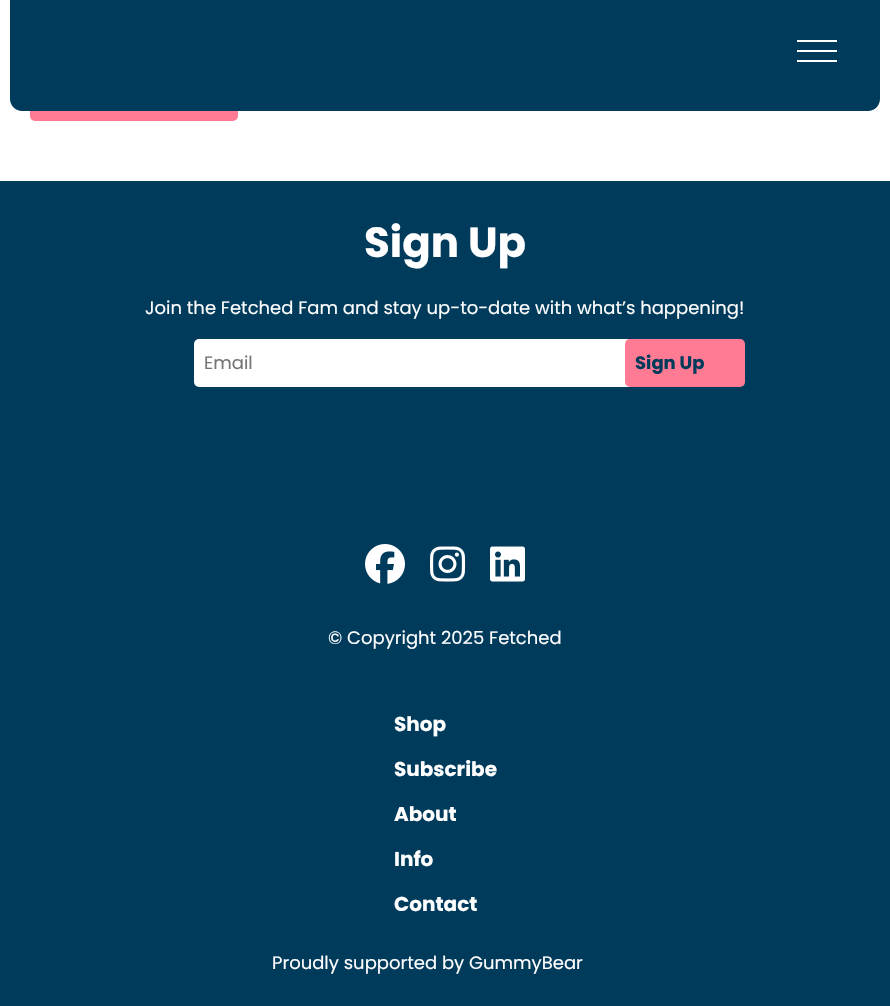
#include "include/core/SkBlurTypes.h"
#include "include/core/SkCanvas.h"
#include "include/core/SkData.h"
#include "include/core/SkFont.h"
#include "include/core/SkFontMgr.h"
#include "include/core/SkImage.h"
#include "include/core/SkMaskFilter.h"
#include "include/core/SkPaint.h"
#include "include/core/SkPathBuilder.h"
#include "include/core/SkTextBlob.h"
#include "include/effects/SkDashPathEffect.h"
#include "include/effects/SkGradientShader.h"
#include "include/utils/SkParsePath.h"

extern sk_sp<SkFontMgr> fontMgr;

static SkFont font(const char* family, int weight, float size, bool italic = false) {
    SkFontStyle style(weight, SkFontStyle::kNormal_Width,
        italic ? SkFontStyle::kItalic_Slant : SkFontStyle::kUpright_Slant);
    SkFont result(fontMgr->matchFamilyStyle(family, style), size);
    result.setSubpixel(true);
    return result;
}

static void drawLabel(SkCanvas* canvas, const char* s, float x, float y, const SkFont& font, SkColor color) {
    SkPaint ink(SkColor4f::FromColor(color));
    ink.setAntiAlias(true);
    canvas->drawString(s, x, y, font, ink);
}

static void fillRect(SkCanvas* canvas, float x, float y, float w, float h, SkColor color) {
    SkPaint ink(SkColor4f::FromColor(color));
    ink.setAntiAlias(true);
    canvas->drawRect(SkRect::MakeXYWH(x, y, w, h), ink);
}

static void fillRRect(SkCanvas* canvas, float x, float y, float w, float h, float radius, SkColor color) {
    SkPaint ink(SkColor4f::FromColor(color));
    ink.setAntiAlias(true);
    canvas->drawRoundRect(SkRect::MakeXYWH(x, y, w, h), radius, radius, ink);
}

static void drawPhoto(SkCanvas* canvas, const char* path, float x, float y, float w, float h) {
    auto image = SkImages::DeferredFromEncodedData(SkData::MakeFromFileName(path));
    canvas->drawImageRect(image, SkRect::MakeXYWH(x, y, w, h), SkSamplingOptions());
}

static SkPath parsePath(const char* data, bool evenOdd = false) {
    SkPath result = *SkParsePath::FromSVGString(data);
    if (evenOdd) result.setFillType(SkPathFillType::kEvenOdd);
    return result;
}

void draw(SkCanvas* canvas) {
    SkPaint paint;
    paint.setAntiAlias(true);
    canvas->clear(0xFFFFFFFF);
    fillRRect(canvas, 30, 73, 208, 48, 5, 0xFFFF7B93);
    paint.setColor(0xFF003B5C);
    canvas->drawPath(parsePath("M10 0H880V99C880 105.5 874.5 111 868 111H22C15.5 111 10 105.5 10 99Z"), paint);
    fillRect(canvas, 797, 50, 40, 2, 0xFFFFFFFF);
    fillRect(canvas, 797, 40, 40, 2, 0xFFFFFFFF);
    fillRect(canvas, 797, 60, 40, 2, 0xFFFFFFFF);
    fillRect(canvas, 0, 181, 890, 825, 0xFF003B5C);
    SkFont font1 = font("Poppins", 700, 42);
    drawLabel(canvas, "Sign Up", 364, 257, font1, 0xFFFFFFFF);
    SkFont font2 = font("Poppins", 400, 18);
    drawLabel(canvas, "Join the Fetched Fam and stay up-to-date with what’s happening!", 145, 314, font2, 0xFFFFFFFF);
    fillRRect(canvas, 194, 339, 503, 48, 5, 0xFFFFFFFF);
    drawLabel(canvas, "Email", 204, 369, font2, 0xFF757575);
    fillRRect(canvas, 625, 339, 120, 48, 5, 0xFFFF7B93);
    SkFont font3 = font("Poppins", 700, 18);
    drawLabel(canvas, "Sign Up", 635, 369, font3, 0xFF003B5C);
    drawPhoto(canvas, "assets/img1.png", 365, 544, 40, 40);
    drawPhoto(canvas, "assets/img2.png", 430, 546, 35, 36);
    drawPhoto(canvas, "assets/img3.png", 490, 546, 35, 36);
    drawLabel(canvas, "© Copyright 2025 Fetched", 328, 644, font2, 0xFFFFFFFF);
    SkFont font4 = font("Poppins", 700, 20);
    drawLabel(canvas, "Shop", 394, 731, font4, 0xFFFFFFFF);
    drawLabel(canvas, "Subscribe", 394, 776, font4, 0xFFFFFFFF);
    drawLabel(canvas, "About", 394, 821, font4, 0xFFFFFFFF);
    drawLabel(canvas, "Info", 394, 866, font4, 0xFFFFFFFF);
    drawLabel(canvas, "Contact", 394, 911, font4, 0xFFFFFFFF);
    drawLabel(canvas, "Proudly supported by GummyBear", 272, 969, font2, 0xFFFFFFFF);
}
